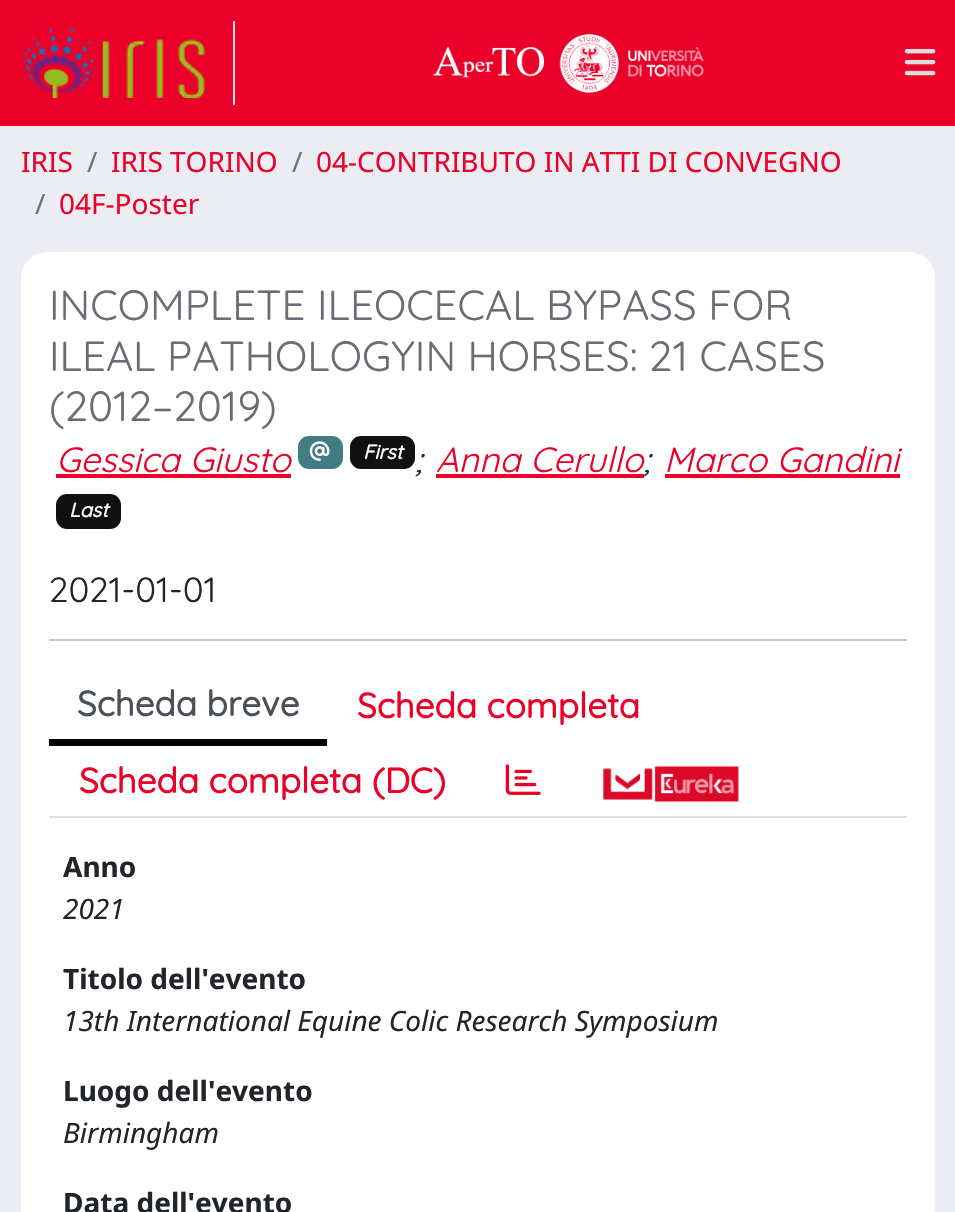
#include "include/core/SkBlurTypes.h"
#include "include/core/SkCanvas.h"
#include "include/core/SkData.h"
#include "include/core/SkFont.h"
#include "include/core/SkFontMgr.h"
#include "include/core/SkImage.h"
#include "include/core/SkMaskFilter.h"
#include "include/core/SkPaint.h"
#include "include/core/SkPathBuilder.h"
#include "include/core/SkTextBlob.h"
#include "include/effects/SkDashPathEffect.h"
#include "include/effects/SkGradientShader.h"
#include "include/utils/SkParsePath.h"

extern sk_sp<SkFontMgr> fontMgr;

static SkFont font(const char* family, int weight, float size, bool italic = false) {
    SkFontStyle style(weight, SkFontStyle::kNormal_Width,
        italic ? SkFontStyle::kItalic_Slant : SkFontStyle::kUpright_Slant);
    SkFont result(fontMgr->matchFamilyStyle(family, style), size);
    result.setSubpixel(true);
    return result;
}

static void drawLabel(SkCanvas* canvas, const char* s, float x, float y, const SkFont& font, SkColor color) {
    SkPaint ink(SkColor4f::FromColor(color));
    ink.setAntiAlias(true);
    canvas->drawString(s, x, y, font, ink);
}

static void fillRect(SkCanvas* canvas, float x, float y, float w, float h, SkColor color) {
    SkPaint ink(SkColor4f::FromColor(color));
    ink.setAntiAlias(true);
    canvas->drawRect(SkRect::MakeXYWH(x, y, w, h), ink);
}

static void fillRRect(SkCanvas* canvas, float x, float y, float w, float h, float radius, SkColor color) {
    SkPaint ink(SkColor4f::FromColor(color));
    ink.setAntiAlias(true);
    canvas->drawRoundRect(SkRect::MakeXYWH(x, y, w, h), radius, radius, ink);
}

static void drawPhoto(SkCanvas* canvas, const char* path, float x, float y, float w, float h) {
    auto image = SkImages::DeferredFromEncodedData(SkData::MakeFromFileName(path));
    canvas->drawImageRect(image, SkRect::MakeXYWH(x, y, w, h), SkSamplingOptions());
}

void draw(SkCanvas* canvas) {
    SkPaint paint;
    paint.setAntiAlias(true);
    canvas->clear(0xFFECEDF2);
    fillRect(canvas, 0, 0, 955, 126, 0xFFEA0029);
    fillRect(canvas, 233, 21, 2, 84, 0xFFDDDDDD);
    drawPhoto(canvas, "assets/img1.png", 21, 28, 184, 70);
    drawPhoto(canvas, "assets/img2.png", 433, 34, 271, 59);
    drawPhoto(canvas, "assets/img3.png", 904, 49, 32, 27);
    SkFont font1 = font("Noto Sans", 400, 28);
    drawLabel(canvas, "IRIS", 21, 172, font1, 0xFFEA0029);
    drawLabel(canvas, "/", 87, 172, font1, 0xFF6C757D);
    drawLabel(canvas, "IRIS TORINO", 111, 172, font1, 0xFFEA0029);
    drawLabel(canvas, "/", 292, 172, font1, 0xFF6C757D);
    drawLabel(canvas, "04-CONTRIBUTO IN ATTI DI CONVEGNO", 316, 172, font1, 0xFFEA0029);
    drawLabel(canvas, "/", 35, 214, font1, 0xFF6C757D);
    drawLabel(canvas, "04F-Poster", 59, 214, font1, 0xFFEA0029);
    fillRRect(canvas, 21, 252, 914, 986, 26, 0xFFFFFFFF);
    SkFont font2 = font("Quicksand", 400, 42.1f);
    drawLabel(canvas, "INCOMPLETE ILEOCECAL BYPASS FOR", 49, 320, font2, 0xFF6B6C74);
    drawLabel(canvas, "ILEAL PATHOLOGYIN HORSES: 21 CASES", 49, 371, font2, 0xFF6B6C74);
    drawLabel(canvas, "(2012–2019)", 49, 421, font2, 0xFF6B6C74);
    SkFont font3 = font("Quicksand", 400, 35, true);
    drawLabel(canvas, "Gessica Giusto", 56, 472, font3, 0xFFEA0029);
    fillRect(canvas, 56, 474, 235, 4, 0xFFEA0029);
    fillRRect(canvas, 298, 436, 45, 33, 11, 0xFF417B84);
    drawPhoto(canvas, "assets/img4.png", 309, 441, 21, 20);
    fillRRect(canvas, 350, 436, 65, 33, 11, 0xFF121111);
    SkFont font4 = font("Quicksand", 700, 20, true);
    drawLabel(canvas, "First", 363, 459, font4, 0xFFFFFFFF);
    drawLabel(canvas, ";", 415, 472, font3, 0xFF212529);
    drawLabel(canvas, "Marco Gandini", 664, 472, font3, 0xFFEA0029);
    fillRect(canvas, 665, 474, 235, 4, 0xFFEA0029);
    fillRRect(canvas, 56, 494, 65, 35, 11, 0xFF121111);
    drawLabel(canvas, "Last", 69, 517, font4, 0xFFFFFFFF);
    drawLabel(canvas, "Anna Cerullo", 436, 472, font3, 0xFFEA0029);
    fillRect(canvas, 436, 474, 208, 4, 0xFFEA0029);
    drawLabel(canvas, ";", 643, 472, font3, 0xFF212529);
    SkFont font5 = font("Quicksand", 400, 35);
    drawLabel(canvas, "2021-01-01", 49, 602, font5, 0xFF212529);
    fillRect(canvas, 49, 639, 858, 2, 0xFFC8C9CA);
    fillRect(canvas, 49, 816, 858, 2, 0xFFDEE2E6);
    fillRect(canvas, 49, 739, 278, 7, 0xFF000000);
    SkFont font6 = font("Quicksand", 700, 35);
    drawLabel(canvas, "Scheda breve", 77, 716, font6, 0xFF495057);
    drawLabel(canvas, "Scheda completa", 357, 718, font6, 0xFFEA0029);
    drawLabel(canvas, "Scheda completa (DC)", 79, 793, font6, 0xFFEA0029);
    drawPhoto(canvas, "assets/img5.png", 505, 764, 36, 31);
    drawPhoto(canvas, "assets/img6.png", 603, 766, 136, 36);
    SkFont font7 = font("Noto Sans", 700, 28);
    drawLabel(canvas, "Anno", 63, 877, font7, 0xFF212529);
    SkFont font8 = font("Noto Sans", 400, 28, true);
    drawLabel(canvas, "2021", 63, 919, font8, 0xFF212529);
    drawLabel(canvas, "Titolo dell'evento", 63, 989, font7, 0xFF212529);
    drawLabel(canvas, "13th International Equine Colic Research Symposium", 63, 1031, font8, 0xFF212529);
    drawLabel(canvas, "Luogo dell'evento", 63, 1101, font7, 0xFF212529);
    drawLabel(canvas, "Birmingham", 63, 1143, font8, 0xFF212529);
    drawLabel(canvas, "Data dell'evento", 63, 1213, font7, 0xFF212529);
}
